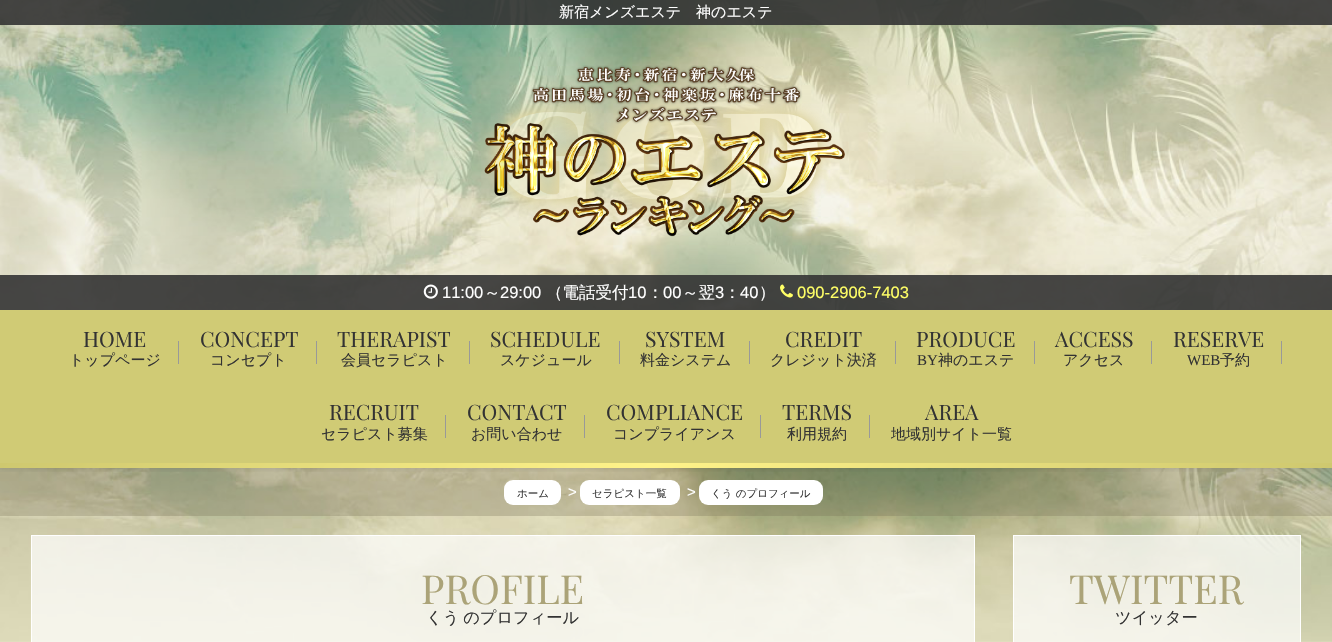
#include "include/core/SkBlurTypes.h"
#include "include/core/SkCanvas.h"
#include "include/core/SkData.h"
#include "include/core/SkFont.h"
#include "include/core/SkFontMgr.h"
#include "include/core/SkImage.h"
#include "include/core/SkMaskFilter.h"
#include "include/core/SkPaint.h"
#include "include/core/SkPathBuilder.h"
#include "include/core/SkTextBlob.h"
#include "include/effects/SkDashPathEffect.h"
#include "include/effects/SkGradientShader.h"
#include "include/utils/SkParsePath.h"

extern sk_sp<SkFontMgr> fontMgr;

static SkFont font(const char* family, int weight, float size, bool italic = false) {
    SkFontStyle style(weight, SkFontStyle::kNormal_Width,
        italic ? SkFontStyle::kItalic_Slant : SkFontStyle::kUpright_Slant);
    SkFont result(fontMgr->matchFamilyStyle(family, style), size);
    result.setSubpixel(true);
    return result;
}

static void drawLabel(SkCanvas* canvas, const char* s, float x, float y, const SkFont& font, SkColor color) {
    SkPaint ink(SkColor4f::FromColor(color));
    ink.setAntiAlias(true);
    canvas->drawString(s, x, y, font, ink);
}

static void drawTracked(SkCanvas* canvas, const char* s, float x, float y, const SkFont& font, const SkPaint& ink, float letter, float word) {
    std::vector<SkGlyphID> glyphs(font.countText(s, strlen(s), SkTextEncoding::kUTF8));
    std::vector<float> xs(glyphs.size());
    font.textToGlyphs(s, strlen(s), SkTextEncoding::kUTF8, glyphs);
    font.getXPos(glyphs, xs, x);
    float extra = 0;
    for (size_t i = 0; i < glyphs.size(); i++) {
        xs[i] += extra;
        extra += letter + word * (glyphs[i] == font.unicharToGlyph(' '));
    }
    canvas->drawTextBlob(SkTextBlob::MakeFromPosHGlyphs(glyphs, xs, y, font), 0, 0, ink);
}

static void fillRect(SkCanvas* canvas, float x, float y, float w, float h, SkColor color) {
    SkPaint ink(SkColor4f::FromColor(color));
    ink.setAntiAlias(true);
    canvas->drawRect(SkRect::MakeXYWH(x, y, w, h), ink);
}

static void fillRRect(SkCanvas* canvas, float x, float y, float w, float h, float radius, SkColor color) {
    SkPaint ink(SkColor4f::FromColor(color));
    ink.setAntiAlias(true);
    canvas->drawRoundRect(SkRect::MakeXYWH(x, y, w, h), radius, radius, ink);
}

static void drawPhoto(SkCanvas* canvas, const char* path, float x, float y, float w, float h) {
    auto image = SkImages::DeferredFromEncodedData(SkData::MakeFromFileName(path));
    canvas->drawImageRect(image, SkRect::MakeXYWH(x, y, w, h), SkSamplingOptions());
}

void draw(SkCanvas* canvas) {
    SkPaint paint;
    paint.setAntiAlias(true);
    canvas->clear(0xFFFFFFFF);
    drawPhoto(canvas, "assets/img1.png", 0, 0, 1332, 642);
    fillRect(canvas, 0, 468, 1332, 48, 0x4D767056);
    canvas->save();
    canvas->clipRect(SkRect::MakeXYWH(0, 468, 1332, 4));
    paint.setColor(0x1A000000);
    paint.setMaskFilter(SkMaskFilter::MakeBlur(kNormal_SkBlurStyle, 3));
    canvas->drawRect(SkRect::MakeXYWH(0, 1, 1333, 468), paint);
    paint.setMaskFilter(nullptr);
    canvas->restore();
    {
        const SkColor colors[] = {0x00FFFFFF, 0x80FFFFFF};
        const float stops[] = {0, 1};
        const SkPoint ends[] = {{666, 0}, {666, 468}};
        paint.setShader(SkGradientShader::MakeLinear(ends, colors, stops, 2, SkTileMode::kClamp));
        paint.setAlpha(255);
    }
    canvas->drawRect(SkRect::MakeXYWH(0, 20, 1332, 290), paint);
    fillRect(canvas, 0, 0, 1332, 25, 0xE6333333);
    SkFont font1 = font("WenQuanYi Zen Hei", 500, 15);
    drawLabel(canvas, "新宿メンズエステ　神のエステ", 559, 17, font1, 0xFFFFFFFF);
    drawPhoto(canvas, "assets/img2.png", 484, 65, 361, 172);
    fillRect(canvas, 0, 275, 1332, 35, 0xE6333333);
    drawPhoto(canvas, "assets/img3.png", 423, 284, 15, 15);
    SkFont font2 = font("Liberation Sans", 400, 16.5f);
    drawLabel(canvas, "11:00", 442, 298, font2, 0xFFFFFFFF);
    SkFont font3 = font("WenQuanYi Zen Hei", 500, 16.5f);
    drawLabel(canvas, "～", 484, 298, font3, 0xFFFFFFFF);
    drawLabel(canvas, "29:00", 500, 298, font2, 0xFFFFFFFF);
    drawLabel(canvas, "（電話受付", 546, 298, font3, 0xFFFFFFFF);
    drawLabel(canvas, "10", 628, 298, font2, 0xFFFFFFFF);
    drawLabel(canvas, "：", 647, 298, font3, 0xFFFFFFFF);
    drawLabel(canvas, "00", 663, 298, font2, 0xFFFFFFFF);
    drawLabel(canvas, "～翌", 682, 298, font3, 0xFFFFFFFF);
    drawLabel(canvas, "3", 715, 298, font2, 0xFFFFFFFF);
    drawLabel(canvas, "：", 724, 298, font3, 0xFFFFFFFF);
    drawLabel(canvas, "40", 740, 298, font2, 0xFFFFFFFF);
    drawLabel(canvas, "）", 759, 298, font3, 0xFFFFFFFF);
    drawPhoto(canvas, "assets/img4.png", 780, 284, 13, 14);
    drawLabel(canvas, "090-2906-7403", 797, 298, font2, 0xFFFFFF66);
    fillRect(canvas, 0, 310, 1332, 153, 0xFFD0CB75);
    SkFont font4 = font("Playfair Display", 400, 21.25f);
    drawLabel(canvas, "HOME", 83, 347, font4, 0xFF333333);
    drawLabel(canvas, "トップページ", 69, 365, font1, 0xFF333333);
    fillRect(canvas, 178, 341, 1, 23, 0xFF999999);
    drawLabel(canvas, "CONCEPT", 200, 347, font4, 0xFF333333);
    drawLabel(canvas, "コンセプト", 210, 365, font1, 0xFF333333);
    fillRect(canvas, 316, 341, 1, 23, 0xFF999999);
    drawLabel(canvas, "THERAPIST", 337, 347, font4, 0xFF333333);
    drawLabel(canvas, "会員セラピスト", 341, 365, font1, 0xFF333333);
    fillRect(canvas, 469, 341, 1, 23, 0xFF999999);
    drawLabel(canvas, "SCHEDULE", 490, 347, font4, 0xFF333333);
    drawLabel(canvas, "スケジュール", 500, 365, font1, 0xFF333333);
    fillRect(canvas, 619, 341, 1, 23, 0xFF999999);
    drawLabel(canvas, "SYSTEM", 645, 347, font4, 0xFF333333);
    drawLabel(canvas, "料金システム", 640, 365, font1, 0xFF333333);
    fillRect(canvas, 749, 341, 1, 23, 0xFF999999);
    drawLabel(canvas, "CREDIT", 785, 347, font4, 0xFF333333);
    drawLabel(canvas, "クレジット決済", 770, 365, font1, 0xFF333333);
    fillRect(canvas, 895, 341, 1, 23, 0xFF999999);
    drawLabel(canvas, "PRODUCE", 916, 347, font4, 0xFF333333);
    SkFont font5 = font("Liberation Serif", 400, 15);
    drawLabel(canvas, "BY", 917, 365, font5, 0xFF333333);
    drawLabel(canvas, "神のエステ", 938, 365, font1, 0xFF333333);
    fillRect(canvas, 1034, 341, 1, 23, 0xFF999999);
    drawLabel(canvas, "ACCESS", 1055, 347, font4, 0xFF333333);
    drawLabel(canvas, "アクセス", 1063, 365, font1, 0xFF333333);
    fillRect(canvas, 1151, 341, 1, 23, 0xFF999999);
    drawLabel(canvas, "RESERVE", 1173, 347, font4, 0xFF333333);
    drawLabel(canvas, "WEB", 1187, 365, font5, 0xFF333333);
    drawLabel(canvas, "予約", 1220, 365, font1, 0xFF333333);
    fillRect(canvas, 1281, 341, 1, 23, 0xFF999999);
    drawLabel(canvas, "RECRUIT", 329, 420, font4, 0xFF333333);
    drawLabel(canvas, "セラピスト募集", 321, 439, font1, 0xFF333333);
    fillRect(canvas, 445, 415, 1, 23, 0xFF999999);
    drawLabel(canvas, "CONTACT", 467, 420, font4, 0xFF333333);
    drawLabel(canvas, "お問い合わせ", 471, 439, font1, 0xFF333333);
    fillRect(canvas, 584, 415, 1, 23, 0xFF999999);
    drawLabel(canvas, "COMPLIANCE", 606, 420, font4, 0xFF333333);
    drawLabel(canvas, "コンプライアンス", 613, 439, font1, 0xFF333333);
    fillRect(canvas, 760, 415, 1, 23, 0xFF999999);
    drawLabel(canvas, "TERMS", 782, 420, font4, 0xFF333333);
    drawLabel(canvas, "利用規約", 787, 439, font1, 0xFF333333);
    fillRect(canvas, 869, 415, 1, 23, 0xFF999999);
    drawLabel(canvas, "AREA", 925, 420, font4, 0xFF333333);
    drawLabel(canvas, "地域別サイト一覧", 891, 439, font1, 0xFF333333);
    {
        const SkColor colors[] = {0xFFCEC86F, 0xFFFFF389, 0xFFCEC86F};
        const float stops[] = {0, 0.49f, 1};
        const SkPoint ends[] = {{332, 131}, {1001, 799}};
        paint.setShader(SkGradientShader::MakeLinear(ends, colors, stops, 3, SkTileMode::kClamp));
        paint.setAlpha(255);
    }
    canvas->drawRect(SkRect::MakeXYWH(0, 463, 1332, 5), paint);
    fillRRect(canvas, 504, 480, 57, 25, 9, 0xFFFFFFFF);
    SkFont font6 = font("WenQuanYi Zen Hei", 500, 10.5f);
    drawLabel(canvas, "ホーム", 517, 497, font6, 0xFF333333);
    SkFont font7 = font("Liberation Sans", 400, 15);
    drawLabel(canvas, ">", 568, 497, font7, 0xFFFFFFFF);
    fillRRect(canvas, 580, 480, 100, 25, 9, 0xFFFFFFFF);
    drawLabel(canvas, "セラピスト一覧", 592, 497, font6, 0xFF333333);
    drawLabel(canvas, ">", 687, 497, font7, 0xFFFFFFFF);
    fillRRect(canvas, 699, 480, 124, 25, 9, 0xFFFFFFFF);
    drawLabel(canvas, "くう のプロフィール", 711, 497, font6, 0xFF333333);
    paint.setShader(nullptr);
    paint.setColor(0xB3FFFFFF);
    canvas->drawRect(SkRect::MakeXYWH(31.5f, 535.5f, 943, 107), paint);
    paint.setStroke(true);
    paint.setStrokeWidth(1);
    paint.setColor(0xFFFFFFFF);
    canvas->drawRect(SkRect::MakeXYWH(31.5f, 535.5f, 943, 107), paint);
    SkFont font8 = font("Playfair Display", 400, 40);
    drawLabel(canvas, "PROFILE", 421, 604, font8, 0xFFABA378);
    SkFont font9 = font("WenQuanYi Zen Hei", 500, 16.25f);
    paint.setStroke(false);
    paint.setColor(0xFF333333);
    drawTracked(canvas, "くう のプロフィール", 426, 623, font9, paint, 0, -1);
    paint.setColor(0xB3FFFFFF);
    canvas->drawRect(SkRect::MakeXYWH(1013.5f, 535.5f, 287, 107), paint);
    paint.setStroke(true);
    paint.setColor(0xFFFFFFFF);
    canvas->drawRect(SkRect::MakeXYWH(1013.5f, 535.5f, 287, 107), paint);
    drawLabel(canvas, "TWITTER", 1069, 604, font8, 0xFFABA378);
    drawLabel(canvas, "ツイッター", 1115, 623, font9, 0xFF333333);
}
